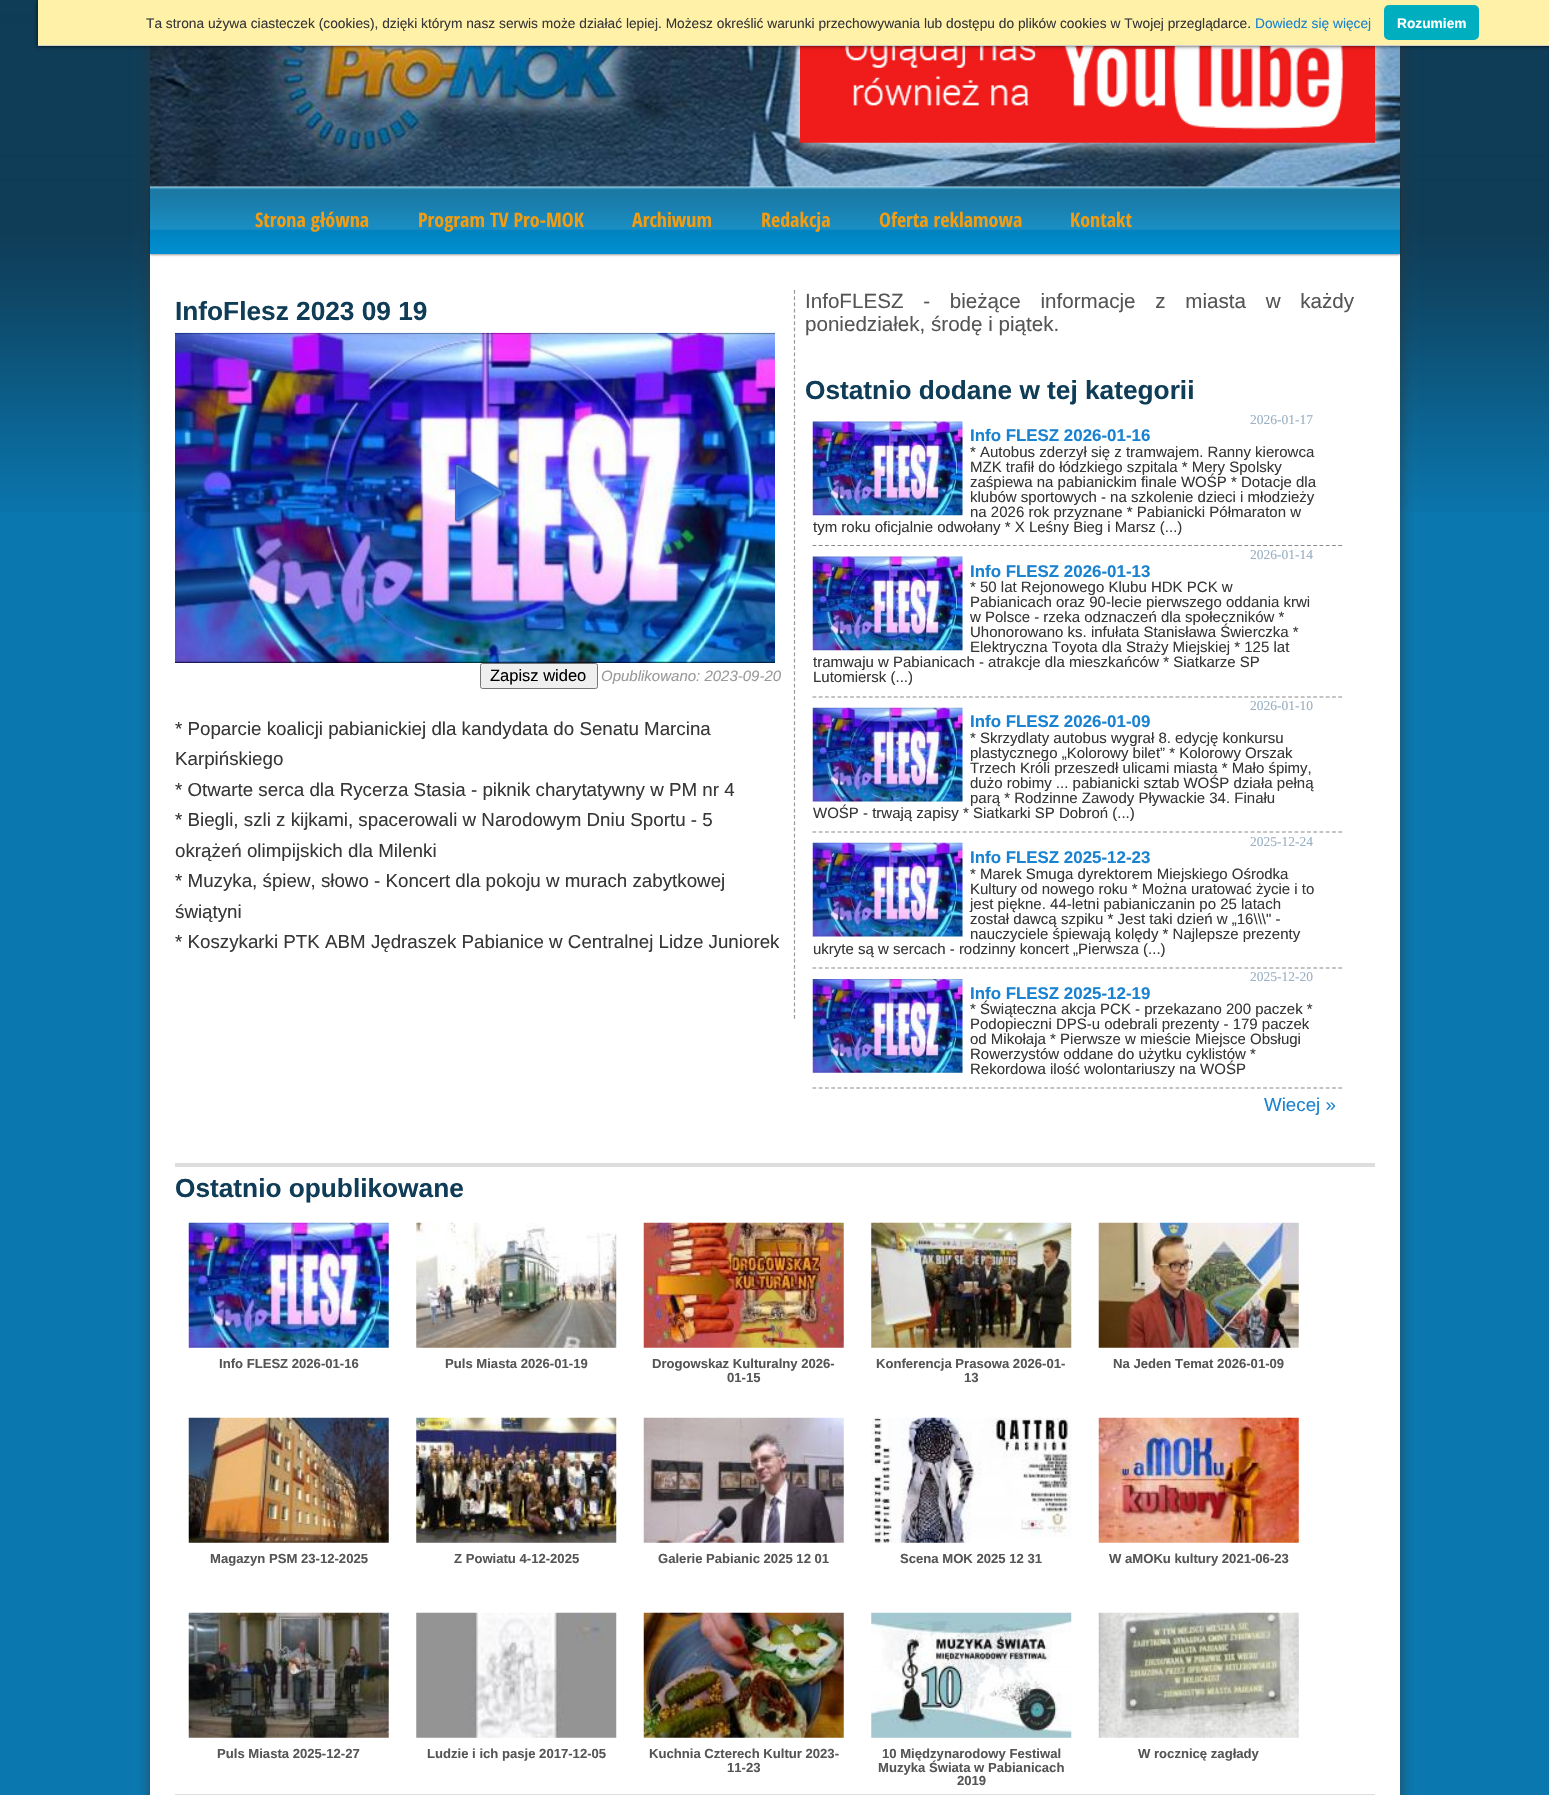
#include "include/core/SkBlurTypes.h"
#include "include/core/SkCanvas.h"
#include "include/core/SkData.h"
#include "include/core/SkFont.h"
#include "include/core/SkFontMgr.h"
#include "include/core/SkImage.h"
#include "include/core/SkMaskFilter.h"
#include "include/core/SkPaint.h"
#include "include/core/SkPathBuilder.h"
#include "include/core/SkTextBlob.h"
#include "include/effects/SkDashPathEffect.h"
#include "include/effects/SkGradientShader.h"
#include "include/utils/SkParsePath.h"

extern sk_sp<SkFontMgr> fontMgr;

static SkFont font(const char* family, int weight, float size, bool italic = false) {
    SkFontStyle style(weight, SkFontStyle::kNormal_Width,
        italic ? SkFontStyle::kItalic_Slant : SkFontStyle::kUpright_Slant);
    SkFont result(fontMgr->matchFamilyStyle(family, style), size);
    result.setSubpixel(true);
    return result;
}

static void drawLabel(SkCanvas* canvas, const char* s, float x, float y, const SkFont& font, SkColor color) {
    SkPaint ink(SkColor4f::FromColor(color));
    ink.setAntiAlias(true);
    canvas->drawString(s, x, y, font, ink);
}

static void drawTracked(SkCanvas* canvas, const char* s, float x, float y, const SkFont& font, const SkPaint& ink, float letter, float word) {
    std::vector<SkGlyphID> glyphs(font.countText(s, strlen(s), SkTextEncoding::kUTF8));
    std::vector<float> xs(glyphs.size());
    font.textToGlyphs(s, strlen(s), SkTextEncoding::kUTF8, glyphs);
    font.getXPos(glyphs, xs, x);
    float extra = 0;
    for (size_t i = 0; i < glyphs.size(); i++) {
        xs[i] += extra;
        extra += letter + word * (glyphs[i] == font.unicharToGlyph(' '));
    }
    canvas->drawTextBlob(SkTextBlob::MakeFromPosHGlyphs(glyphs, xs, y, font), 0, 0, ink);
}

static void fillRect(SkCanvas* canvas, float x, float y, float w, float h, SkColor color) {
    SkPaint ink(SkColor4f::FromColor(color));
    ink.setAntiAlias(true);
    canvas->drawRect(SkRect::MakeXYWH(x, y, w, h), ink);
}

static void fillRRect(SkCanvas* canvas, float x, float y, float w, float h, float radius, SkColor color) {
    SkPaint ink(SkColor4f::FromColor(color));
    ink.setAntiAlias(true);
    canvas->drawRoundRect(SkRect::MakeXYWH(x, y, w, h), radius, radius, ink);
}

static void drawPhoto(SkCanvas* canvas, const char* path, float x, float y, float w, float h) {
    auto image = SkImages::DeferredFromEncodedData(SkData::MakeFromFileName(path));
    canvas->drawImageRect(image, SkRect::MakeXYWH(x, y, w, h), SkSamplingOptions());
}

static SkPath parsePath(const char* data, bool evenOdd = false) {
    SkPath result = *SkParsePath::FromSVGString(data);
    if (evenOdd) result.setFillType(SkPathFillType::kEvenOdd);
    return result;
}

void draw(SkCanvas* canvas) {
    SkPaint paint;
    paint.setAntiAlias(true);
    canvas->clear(0xFF0A77AF);
    drawPhoto(canvas, "assets/img1.png", 0, 0, 1549, 512);
    paint.setColor(0x80323232);
    paint.setMaskFilter(SkMaskFilter::MakeBlur(kNormal_SkBlurStyle, 5));
    canvas->drawRect(SkRect::MakeXYWH(148, -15, 1255, 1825), paint);
    paint.setMaskFilter(nullptr);
    fillRect(canvas, 150, 186, 1250, 1609, 0xFFFFFFFF);
    paint.setColor(0x66000000);
    paint.setMaskFilter(SkMaskFilter::MakeBlur(kNormal_SkBlurStyle, 1));
    canvas->drawRect(SkRect::MakeXYWH(150, 188, 1250, 67), paint);
    paint.setMaskFilter(nullptr);
    drawPhoto(canvas, "assets/img4.png", 150, 186, 1250, 68);
    drawPhoto(canvas, "assets/img3.png", 150, 46, 1250, 141);
    paint.setColor(0xFFF0F0F0);
    paint.setMaskFilter(SkMaskFilter::MakeBlur(kNormal_SkBlurStyle, 7.5f));
    canvas->drawRect(SkRect::MakeXYWH(800, -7, 575, 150), paint);
    paint.setMaskFilter(nullptr);
    drawPhoto(canvas, "assets/img2.png", 800, 46, 575, 97);
    paint.setColor(0xCC000000);
    paint.setMaskFilter(SkMaskFilter::MakeBlur(kNormal_SkBlurStyle, 2));
    canvas->drawRect(SkRect::MakeXYWH(38, 0, 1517, 46), paint);
    paint.setMaskFilter(nullptr);
    fillRect(canvas, 38, 0, 1511, 45, 0xFFFFF1A8);
    fillRect(canvas, 38, 45, 1511, 1, 0xFFD3D0D0);
    SkFont font1 = font("Liberation Sans", 400, 13.75f);
    drawLabel(canvas, "Ta strona używa ciasteczek (cookies), dzięki którym nasz serwis może działać lepiej. Możesz określić warunki przechowywania lub dostępu do plików cookies w Twojej przeglądarce.", 146, 28, font1, 0xFF373737);
    drawLabel(canvas, "Dowiedz się więcej", 1255, 28, font1, 0xFF1982D1);
    fillRRect(canvas, 1384, 5, 95, 35, 5, 0xFF00AFBF);
    SkFont font2 = font("Liberation Sans", 700, 13.75f);
    drawLabel(canvas, "Rozumiem", 1397, 28, font2, 0xFFFFFFFF);
    SkFont font3 = font("Open Sans Condensed", 700, 20);
    drawLabel(canvas, "Strona główna", 255, 227, font3, 0xFFF29D11);
    drawLabel(canvas, "Program TV Pro-MOK", 418, 227, font3, 0xFFF29D11);
    drawLabel(canvas, "Archiwum", 632, 227, font3, 0xFFF29D11);
    drawLabel(canvas, "Redakcja", 761, 227, font3, 0xFFF29D11);
    drawLabel(canvas, "Oferta reklamowa", 879, 227, font3, 0xFFF29D11);
    drawLabel(canvas, "Kontakt", 1070, 227, font3, 0xFFF29D11);
    paint.setStroke(true);
    paint.setStrokeWidth(1.2f);
    paint.setColor(0xFF999999);
    paint.setPathEffect(SkDashPathEffect::Make({{3.75f, 2.5f}}, 0));
    canvas->drawPath(parsePath("M794.5 290V1019"), paint);
    paint.setPathEffect(nullptr);
    SkFont font4 = font("Liberation Sans", 700, 26.25f);
    drawLabel(canvas, "InfoFlesz 2023 09 19", 175, 320, font4, 0xFF0F3C56);
    fillRect(canvas, 175, 662, 600, 1, 0xFF000000);
    drawPhoto(canvas, "assets/img5.png", 175, 332, 600, 331);
    drawPhoto(canvas, "assets/img6.png", 454, 463, 52, 61);
    paint.setStroke(false);
    paint.setColor(0xFFEFEFEF);
    canvas->drawRoundRect(SkRect::MakeXYWH(480.5f, 663.5f, 117, 25), 2, 2, paint);
    paint.setStroke(true);
    paint.setStrokeWidth(1);
    paint.setColor(0xFF767676);
    canvas->drawRoundRect(SkRect::MakeXYWH(480.5f, 663.5f, 117, 25), 2, 2, paint);
    SkFont font5 = font("Liberation Sans", 400, 16.5f);
    drawLabel(canvas, "Zapisz wideo", 490, 681, font5, 0xFF000000);
    SkFont font6 = font("Liberation Sans", 400, 15, true);
    drawLabel(canvas, "Opublikowano: 2023-09-20", 601, 681, font6, 0xFF999999);
    SkFont font7 = font("Liberation Sans", 400, 18.75f);
    drawLabel(canvas, "* Poparcie koalicji pabianickiej dla kandydata do Senatu Marcina", 175, 735, font7, 0xFF373737);
    drawLabel(canvas, "Karpińskiego", 175, 765, font7, 0xFF373737);
    drawLabel(canvas, "* Otwarte serca dla Rycerza Stasia - piknik charytatywny w PM nr 4", 175, 796, font7, 0xFF373737);
    drawLabel(canvas, "* Biegli, szli z kijkami, spacerowali w Narodowym Dniu Sportu - 5", 175, 826, font7, 0xFF373737);
    drawLabel(canvas, "okrążeń olimpijskich dla Milenki", 175, 857, font7, 0xFF373737);
    drawLabel(canvas, "* Muzyka, śpiew, słowo - Koncert dla pokoju w murach zabytkowej", 175, 887, font7, 0xFF373737);
    drawLabel(canvas, "świątyni", 175, 918, font7, 0xFF373737);
    drawLabel(canvas, "* Koszykarki PTK ABM Jędraszek Pabianice w Centralnej Lidze Juniorek", 175, 948, font7, 0xFF373737);
    SkFont font8 = font("Liberation Sans", 400, 20.6f);
    paint.setStroke(false);
    paint.setColor(0xFF555555);
    drawTracked(canvas, "InfoFLESZ - bieżące informacje z miasta w każdy", 805, 308, font8, paint, 0, 14);
    drawLabel(canvas, "poniedziałek, środę i piątek.", 805, 331, font8, 0xFF555555);
    drawLabel(canvas, "Ostatnio dodane w tej kategorii", 805, 399, font4, 0xFF0F3C56);
    paint.setStroke(true);
    paint.setStrokeWidth(1.2f);
    paint.setColor(0xFF888888);
    paint.setPathEffect(SkDashPathEffect::Make({{3.75f, 2.51f}}, 0));
    canvas->drawPath(parsePath("M812.5 545.5H1342.5"), paint);
    paint.setPathEffect(nullptr);
    drawPhoto(canvas, "assets/img7.png", 812, 421, 151, 95);
    SkFont font9 = font("Liberation Serif", 400, 13.5f);
    drawLabel(canvas, "2026-01-17", 1250, 424, font9, 0xFF9AB0C4);
    SkFont font10 = font("Liberation Sans", 700, 16.9f);
    drawLabel(canvas, "Info FLESZ 2026-01-16", 970, 441, font10, 0xFF1982D1);
    SkFont font11 = font("Liberation Sans", 400, 15);
    drawLabel(canvas, "* Autobus zderzył się z tramwajem. Ranny kierowca", 970, 457, font11, 0xFF373737);
    drawLabel(canvas, "MZK trafił do łódzkiego szpitala * Mery Spolsky", 970, 472, font11, 0xFF373737);
    drawLabel(canvas, "zaśpiewa na pabianickim finale WOŚP * Dotacje dla", 970, 487, font11, 0xFF373737);
    drawLabel(canvas, "klubów sportowych - na szkolenie dzieci i młodzieży", 970, 502, font11, 0xFF373737);
    drawLabel(canvas, "na 2026 rok przyznane * Pabianicki Półmaraton w", 970, 517, font11, 0xFF373737);
    drawLabel(canvas, "tym roku oficjalnie odwołany * X Leśny Bieg i Marsz (...)", 813, 532, font11, 0xFF373737);
    fillRect(canvas, 813, 546, 529, 1, 0xFFFFFFFF);
    paint.setPathEffect(SkDashPathEffect::Make({{3.75f, 2.51f}}, 0));
    canvas->drawPath(parsePath("M812.5 697H1342.5"), paint);
    paint.setPathEffect(nullptr);
    drawPhoto(canvas, "assets/img7.png", 812, 556, 151, 95);
    drawLabel(canvas, "2026-01-14", 1250, 559, font9, 0xFF9AB0C4);
    drawLabel(canvas, "Info FLESZ 2026-01-13", 970, 577, font10, 0xFF1982D1);
    drawLabel(canvas, "* 50 lat Rejonowego Klubu HDK PCK w", 970, 592, font11, 0xFF373737);
    drawLabel(canvas, "Pabianicach oraz 90-lecie pierwszego oddania krwi", 970, 607, font11, 0xFF373737);
    drawLabel(canvas, "w Polsce - rzeka odznaczeń dla społeczników *", 970, 622, font11, 0xFF373737);
    drawLabel(canvas, "Uhonorowano ks. infułata Stanisława Świerczka *", 970, 637, font11, 0xFF373737);
    drawLabel(canvas, "Elektryczna Toyota dla Straży Miejskiej * 125 lat", 970, 652, font11, 0xFF373737);
    drawLabel(canvas, "tramwaju w Pabianicach - atrakcje dla mieszkańców * Siatkarze SP", 813, 667, font11, 0xFF373737);
    drawLabel(canvas, "Lutomiersk (...)", 813, 682, font11, 0xFF373737);
    paint.setPathEffect(SkDashPathEffect::Make({{3.75f, 2.51f}}, 0));
    canvas->drawPath(parsePath("M812.5 832H1342.5"), paint);
    paint.setPathEffect(nullptr);
    drawPhoto(canvas, "assets/img8.png", 812, 707, 151, 95);
    drawLabel(canvas, "2026-01-10", 1250, 710, font9, 0xFF9AB0C4);
    drawLabel(canvas, "Info FLESZ 2026-01-09", 970, 727, font10, 0xFF1982D1);
    drawLabel(canvas, "* Skrzydlaty autobus wygrał 8. edycję konkursu", 970, 743, font11, 0xFF373737);
    drawLabel(canvas, "plastycznego „Kolorowy bilet” * Kolorowy Orszak", 970, 758, font11, 0xFF373737);
    drawLabel(canvas, "Trzech Króli przeszedł ulicami miasta * Mało śpimy,", 970, 773, font11, 0xFF373737);
    drawLabel(canvas, "dużo robimy ... pabianicki sztab WOŚP działa pełną", 970, 788, font11, 0xFF373737);
    drawLabel(canvas, "parą * Rodzinne Zawody Pływackie 34. Finału", 970, 803, font11, 0xFF373737);
    drawLabel(canvas, "WOŚP - trwają zapisy * Siatkarki SP Dobroń (...)", 813, 818, font11, 0xFF373737);
    paint.setPathEffect(SkDashPathEffect::Make({{3.75f, 2.51f}}, 0));
    canvas->drawPath(parsePath("M812.5 968H1342.5"), paint);
    paint.setPathEffect(nullptr);
    drawPhoto(canvas, "assets/img8.png", 812, 842, 151, 95);
    drawLabel(canvas, "2025-12-24", 1250, 846, font9, 0xFF9AB0C4);
    drawLabel(canvas, "Info FLESZ 2025-12-23", 970, 863, font10, 0xFF1982D1);
    drawLabel(canvas, "* Marek Smuga dyrektorem Miejskiego Ośrodka", 970, 879, font11, 0xFF373737);
    drawLabel(canvas, "Kultury od nowego roku * Można uratować życie i to", 970, 894, font11, 0xFF373737);
    drawLabel(canvas, "jest piękne. 44-letni pabianiczanin po 25 latach", 970, 909, font11, 0xFF373737);
    drawLabel(canvas, "został dawcą szpiku * Jest taki dzień w „16\\\\\\\" -", 970, 924, font11, 0xFF373737);
    drawLabel(canvas, "nauczyciele śpiewają kolędy * Najlepsze prezenty", 970, 939, font11, 0xFF373737);
    drawLabel(canvas, "ukryte są w sercach - rodzinny koncert „Pierwsza (...)", 813, 954, font11, 0xFF373737);
    paint.setPathEffect(SkDashPathEffect::Make({{3.75f, 2.51f}}, 0));
    canvas->drawPath(parsePath("M812.5 1088H1342.5"), paint);
    paint.setPathEffect(nullptr);
    drawPhoto(canvas, "assets/img9.png", 812, 979, 151, 94);
    drawLabel(canvas, "2025-12-20", 1250, 981, font9, 0xFF9AB0C4);
    drawLabel(canvas, "Info FLESZ 2025-12-19", 970, 999, font10, 0xFF1982D1);
    drawLabel(canvas, "* Świąteczna akcja PCK - przekazano 200 paczek *", 970, 1014, font11, 0xFF373737);
    drawLabel(canvas, "Podopieczni DPS-u odebrali prezenty - 179 paczek", 970, 1029, font11, 0xFF373737);
    drawLabel(canvas, "od Mikołaja * Pierwsze w mieście Miejsce Obsługi", 970, 1044, font11, 0xFF373737);
    drawLabel(canvas, "Rowerzystów oddane do użytku cyklistów *", 970, 1059, font11, 0xFF373737);
    drawLabel(canvas, "Rekordowa ilość wolontariuszy na WOŚP", 970, 1074, font11, 0xFF373737);
    drawLabel(canvas, "Wiecej »", 1264, 1111, font7, 0xFF1982D1);
    fillRect(canvas, 175, 1163, 1200, 4, 0xFFDDDDDD);
    fillRect(canvas, 175, 1794, 1200, 1, 0xFFDDDDDD);
    drawLabel(canvas, "Ostatnio opublikowane", 175, 1197, font4, 0xFF0F3C56);
    drawPhoto(canvas, "assets/img10.png", 188, 1222, 201, 126);
    SkFont font12 = font("Liberation Sans", 700, 13.1f);
    drawLabel(canvas, "Info FLESZ 2026-01-16", 219, 1368, font12, 0xFF555555);
    drawPhoto(canvas, "assets/img11.png", 416, 1222, 201, 126);
    drawLabel(canvas, "Puls Miasta 2026-01-19", 445, 1368, font12, 0xFF555555);
    drawPhoto(canvas, "assets/img12.png", 643, 1222, 201, 126);
    drawLabel(canvas, "Drogowskaz Kulturalny 2026-", 652, 1368, font12, 0xFF555555);
    drawLabel(canvas, "01-15", 727, 1382, font12, 0xFF555555);
    drawPhoto(canvas, "assets/img13.png", 871, 1222, 201, 126);
    drawLabel(canvas, "Konferencja Prasowa 2026-01-", 876, 1368, font12, 0xFF555555);
    drawLabel(canvas, "13", 964, 1382, font12, 0xFF555555);
    drawPhoto(canvas, "assets/img14.png", 1098, 1222, 201, 126);
    drawLabel(canvas, "Na Jeden Temat 2026-01-09", 1113, 1368, font12, 0xFF555555);
    drawPhoto(canvas, "assets/img15.png", 188, 1417, 201, 126);
    drawLabel(canvas, "Magazyn PSM 23-12-2025", 210, 1563, font12, 0xFF555555);
    drawPhoto(canvas, "assets/img16.png", 416, 1417, 201, 126);
    drawLabel(canvas, "Z Powiatu 4-12-2025", 454, 1563, font12, 0xFF555555);
    drawPhoto(canvas, "assets/img17.png", 643, 1417, 201, 126);
    drawLabel(canvas, "Galerie Pabianic 2025 12 01", 658, 1563, font12, 0xFF555555);
    drawPhoto(canvas, "assets/img18.png", 871, 1417, 201, 126);
    drawLabel(canvas, "Scena MOK 2025 12 31", 900, 1563, font12, 0xFF555555);
    drawPhoto(canvas, "assets/img19.png", 1098, 1417, 201, 126);
    drawLabel(canvas, "W aMOKu kultury 2021-06-23", 1109, 1563, font12, 0xFF555555);
    drawPhoto(canvas, "assets/img20.png", 188, 1612, 201, 126);
    drawLabel(canvas, "Puls Miasta 2025-12-27", 217, 1758, font12, 0xFF555555);
    drawPhoto(canvas, "assets/img21.png", 416, 1612, 201, 126);
    drawLabel(canvas, "Ludzie i ich pasje 2017-12-05", 427, 1758, font12, 0xFF555555);
    drawPhoto(canvas, "assets/img22.png", 643, 1612, 201, 126);
    drawLabel(canvas, "Kuchnia Czterech Kultur 2023-", 649, 1758, font12, 0xFF555555);
    drawLabel(canvas, "11-23", 727, 1772, font12, 0xFF555555);
    drawPhoto(canvas, "assets/img23.png", 871, 1612, 201, 126);
    drawLabel(canvas, "10 Międzynarodowy Festiwal", 882, 1758, font12, 0xFF555555);
    drawLabel(canvas, "Muzyka Świata w Pabianicach", 878, 1772, font12, 0xFF555555);
    drawLabel(canvas, "2019", 957, 1785, font12, 0xFF555555);
    drawPhoto(canvas, "assets/img24.png", 1098, 1612, 201, 126);
    drawLabel(canvas, "W rocznicę zagłady", 1138, 1758, font12, 0xFF555555);
}
